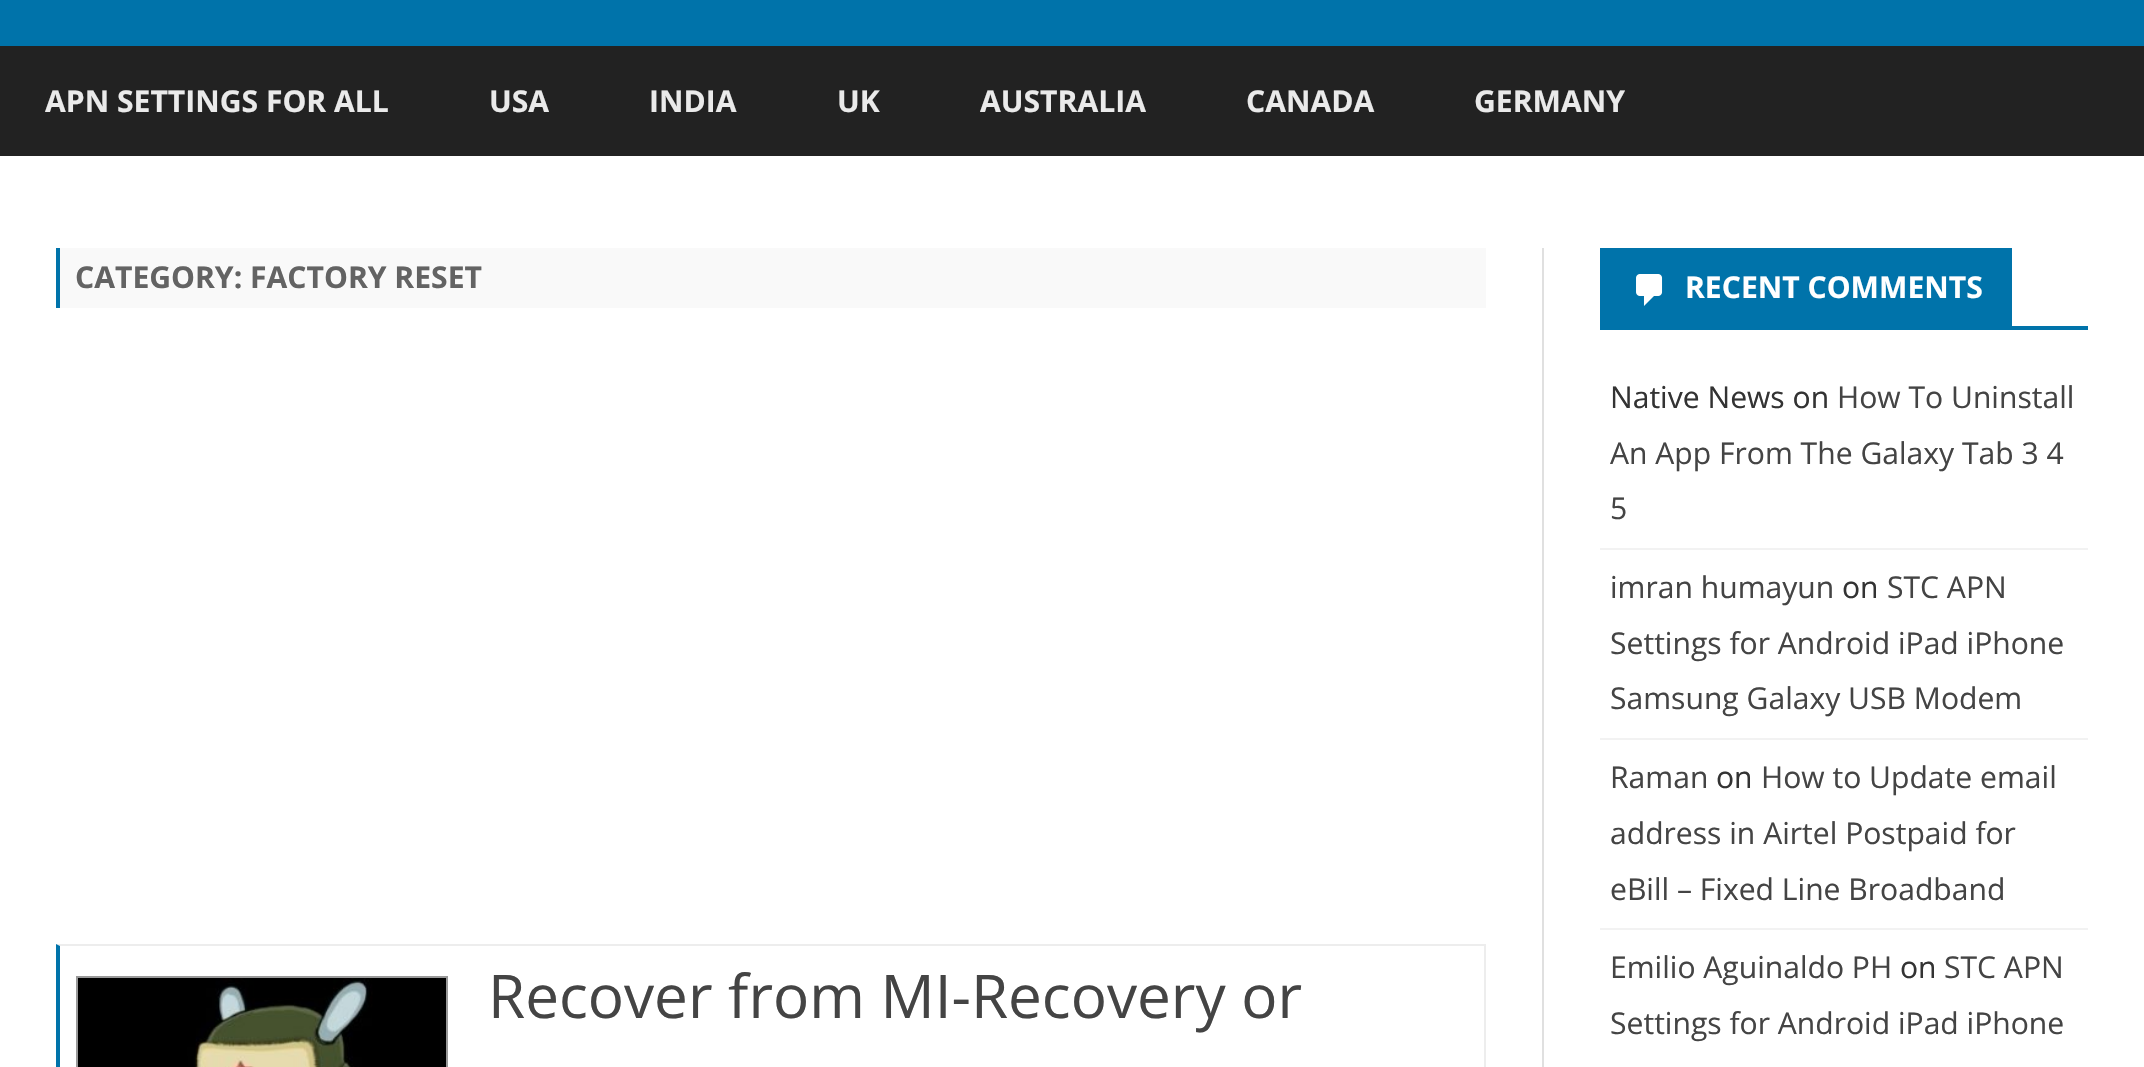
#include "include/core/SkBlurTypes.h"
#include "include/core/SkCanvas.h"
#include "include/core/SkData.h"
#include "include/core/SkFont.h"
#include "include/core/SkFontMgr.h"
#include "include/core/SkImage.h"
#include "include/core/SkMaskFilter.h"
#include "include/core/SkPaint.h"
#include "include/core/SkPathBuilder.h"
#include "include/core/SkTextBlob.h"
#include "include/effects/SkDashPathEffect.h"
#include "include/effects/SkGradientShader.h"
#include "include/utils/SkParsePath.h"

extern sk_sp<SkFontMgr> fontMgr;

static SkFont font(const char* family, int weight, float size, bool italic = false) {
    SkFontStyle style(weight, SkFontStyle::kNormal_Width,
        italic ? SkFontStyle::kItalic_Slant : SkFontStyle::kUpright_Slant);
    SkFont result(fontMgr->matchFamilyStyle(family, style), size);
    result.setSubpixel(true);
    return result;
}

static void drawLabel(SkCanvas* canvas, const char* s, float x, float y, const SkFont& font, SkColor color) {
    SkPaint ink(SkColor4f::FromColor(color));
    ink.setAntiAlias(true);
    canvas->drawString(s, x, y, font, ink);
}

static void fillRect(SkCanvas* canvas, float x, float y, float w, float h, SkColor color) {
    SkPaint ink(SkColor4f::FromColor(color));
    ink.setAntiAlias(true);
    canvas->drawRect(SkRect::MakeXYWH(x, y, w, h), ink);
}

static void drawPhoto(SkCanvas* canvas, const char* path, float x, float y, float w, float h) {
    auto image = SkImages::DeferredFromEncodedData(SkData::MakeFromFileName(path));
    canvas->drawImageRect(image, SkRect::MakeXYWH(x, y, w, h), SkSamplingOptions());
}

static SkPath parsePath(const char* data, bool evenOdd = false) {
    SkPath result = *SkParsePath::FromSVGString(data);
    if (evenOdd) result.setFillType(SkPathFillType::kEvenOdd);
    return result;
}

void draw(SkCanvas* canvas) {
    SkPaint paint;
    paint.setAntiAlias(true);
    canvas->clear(0xFFFFFFFF);
    fillRect(canvas, 0, 0, 2144, 46, 0xFF0073AA);
    fillRect(canvas, 0, 46, 2144, 110, 0xFF222222);
    SkFont font1 = font("Open Sans", 700, 30.1f);
    drawLabel(canvas, "APN SETTINGS FOR ALL", 45, 112, font1, 0xFFEAEAEA);
    drawLabel(canvas, "USA", 489, 112, font1, 0xFFEAEAEA);
    drawLabel(canvas, "INDIA", 649, 112, font1, 0xFFEAEAEA);
    drawLabel(canvas, "UK", 837, 112, font1, 0xFFEAEAEA);
    drawLabel(canvas, "AUSTRALIA", 980, 112, font1, 0xFFEAEAEA);
    drawLabel(canvas, "CANADA", 1246, 112, font1, 0xFFEAEAEA);
    drawLabel(canvas, "GERMANY", 1474, 112, font1, 0xFFEAEAEA);
    fillRect(canvas, 1542, 248, 2, 819, 0xFFE0E0E0);
    fillRect(canvas, 60, 248, 1426, 60, 0xFFF9F9F9);
    fillRect(canvas, 56, 248, 4, 60, 0xFF0073AA);
    drawLabel(canvas, "CATEGORY: FACTORY RESET", 75, 288, font1, 0xFF636363);
    paint.setColor(0xFFEDEDED);
    canvas->drawPath(parsePath("M56 944H1486L1484 946H60Z"), paint);
    fillRect(canvas, 1484, 944, 2, 123, 0xFFEDEDED);
    paint.setColor(0xFF0073AA);
    canvas->drawPath(parsePath("M56 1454V944L60 946V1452Z"), paint);
    paint.setStroke(true);
    paint.setStrokeWidth(2);
    paint.setColor(0xFF999999);
    canvas->drawRect(SkRect::MakeXYWH(77, 977, 370, 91), paint);
    drawPhoto(canvas, "assets/img1.png", 78, 978, 368, 89);
    SkFont font2 = font("Open Sans", 400, 60.2f);
    drawLabel(canvas, "Recover from MI-Recovery or", 488, 1018, font2, 0xFF444444);
    fillRect(canvas, 1600, 326, 488, 4, 0xFF0073AA);
    fillRect(canvas, 1600, 248, 412, 78, 0xFF0073AA);
    drawPhoto(canvas, "assets/img2.png", 1636, 274, 27, 32);
    drawLabel(canvas, "RECENT COMMENTS", 1685, 298, font1, 0xFFFFFFFF);
    fillRect(canvas, 1600, 548, 488, 2, 0xFFF2F2F2);
    SkFont font3 = font("Open Sans", 400, 30.1f);
    drawLabel(canvas, "Native News on", 1610, 408, font3, 0xFF333333);
    drawLabel(canvas, "How To Uninstall", 1837, 408, font3, 0xFF444444);
    drawLabel(canvas, "An App From The Galaxy Tab 3 4", 1610, 464, font3, 0xFF444444);
    drawLabel(canvas, "5", 1610, 519, font3, 0xFF444444);
    fillRect(canvas, 1600, 738, 488, 2, 0xFFF2F2F2);
    drawLabel(canvas, "imran humayun", 1610, 598, font3, 0xFF444444);
    drawLabel(canvas, "on", 1842, 598, font3, 0xFF333333);
    drawLabel(canvas, "STC APN", 1887, 598, font3, 0xFF444444);
    drawLabel(canvas, "Settings for Android iPad iPhone", 1610, 654, font3, 0xFF444444);
    drawLabel(canvas, "Samsung Galaxy USB Modem", 1610, 709, font3, 0xFF444444);
    fillRect(canvas, 1600, 928, 488, 2, 0xFFF2F2F2);
    drawLabel(canvas, "Raman", 1610, 788, font3, 0xFF444444);
    drawLabel(canvas, "on", 1716, 788, font3, 0xFF333333);
    drawLabel(canvas, "How to Update email", 1761, 788, font3, 0xFF444444);
    drawLabel(canvas, "address in Airtel Postpaid for", 1610, 844, font3, 0xFF444444);
    drawLabel(canvas, "eBill – Fixed Line Broadband", 1610, 900, font3, 0xFF444444);
    drawLabel(canvas, "Emilio Aguinaldo PH", 1610, 978, font3, 0xFF444444);
    drawLabel(canvas, "on", 1900, 978, font3, 0xFF333333);
    drawLabel(canvas, "STC APN", 1944, 978, font3, 0xFF444444);
    drawLabel(canvas, "Settings for Android iPad iPhone", 1610, 1034, font3, 0xFF444444);
}
